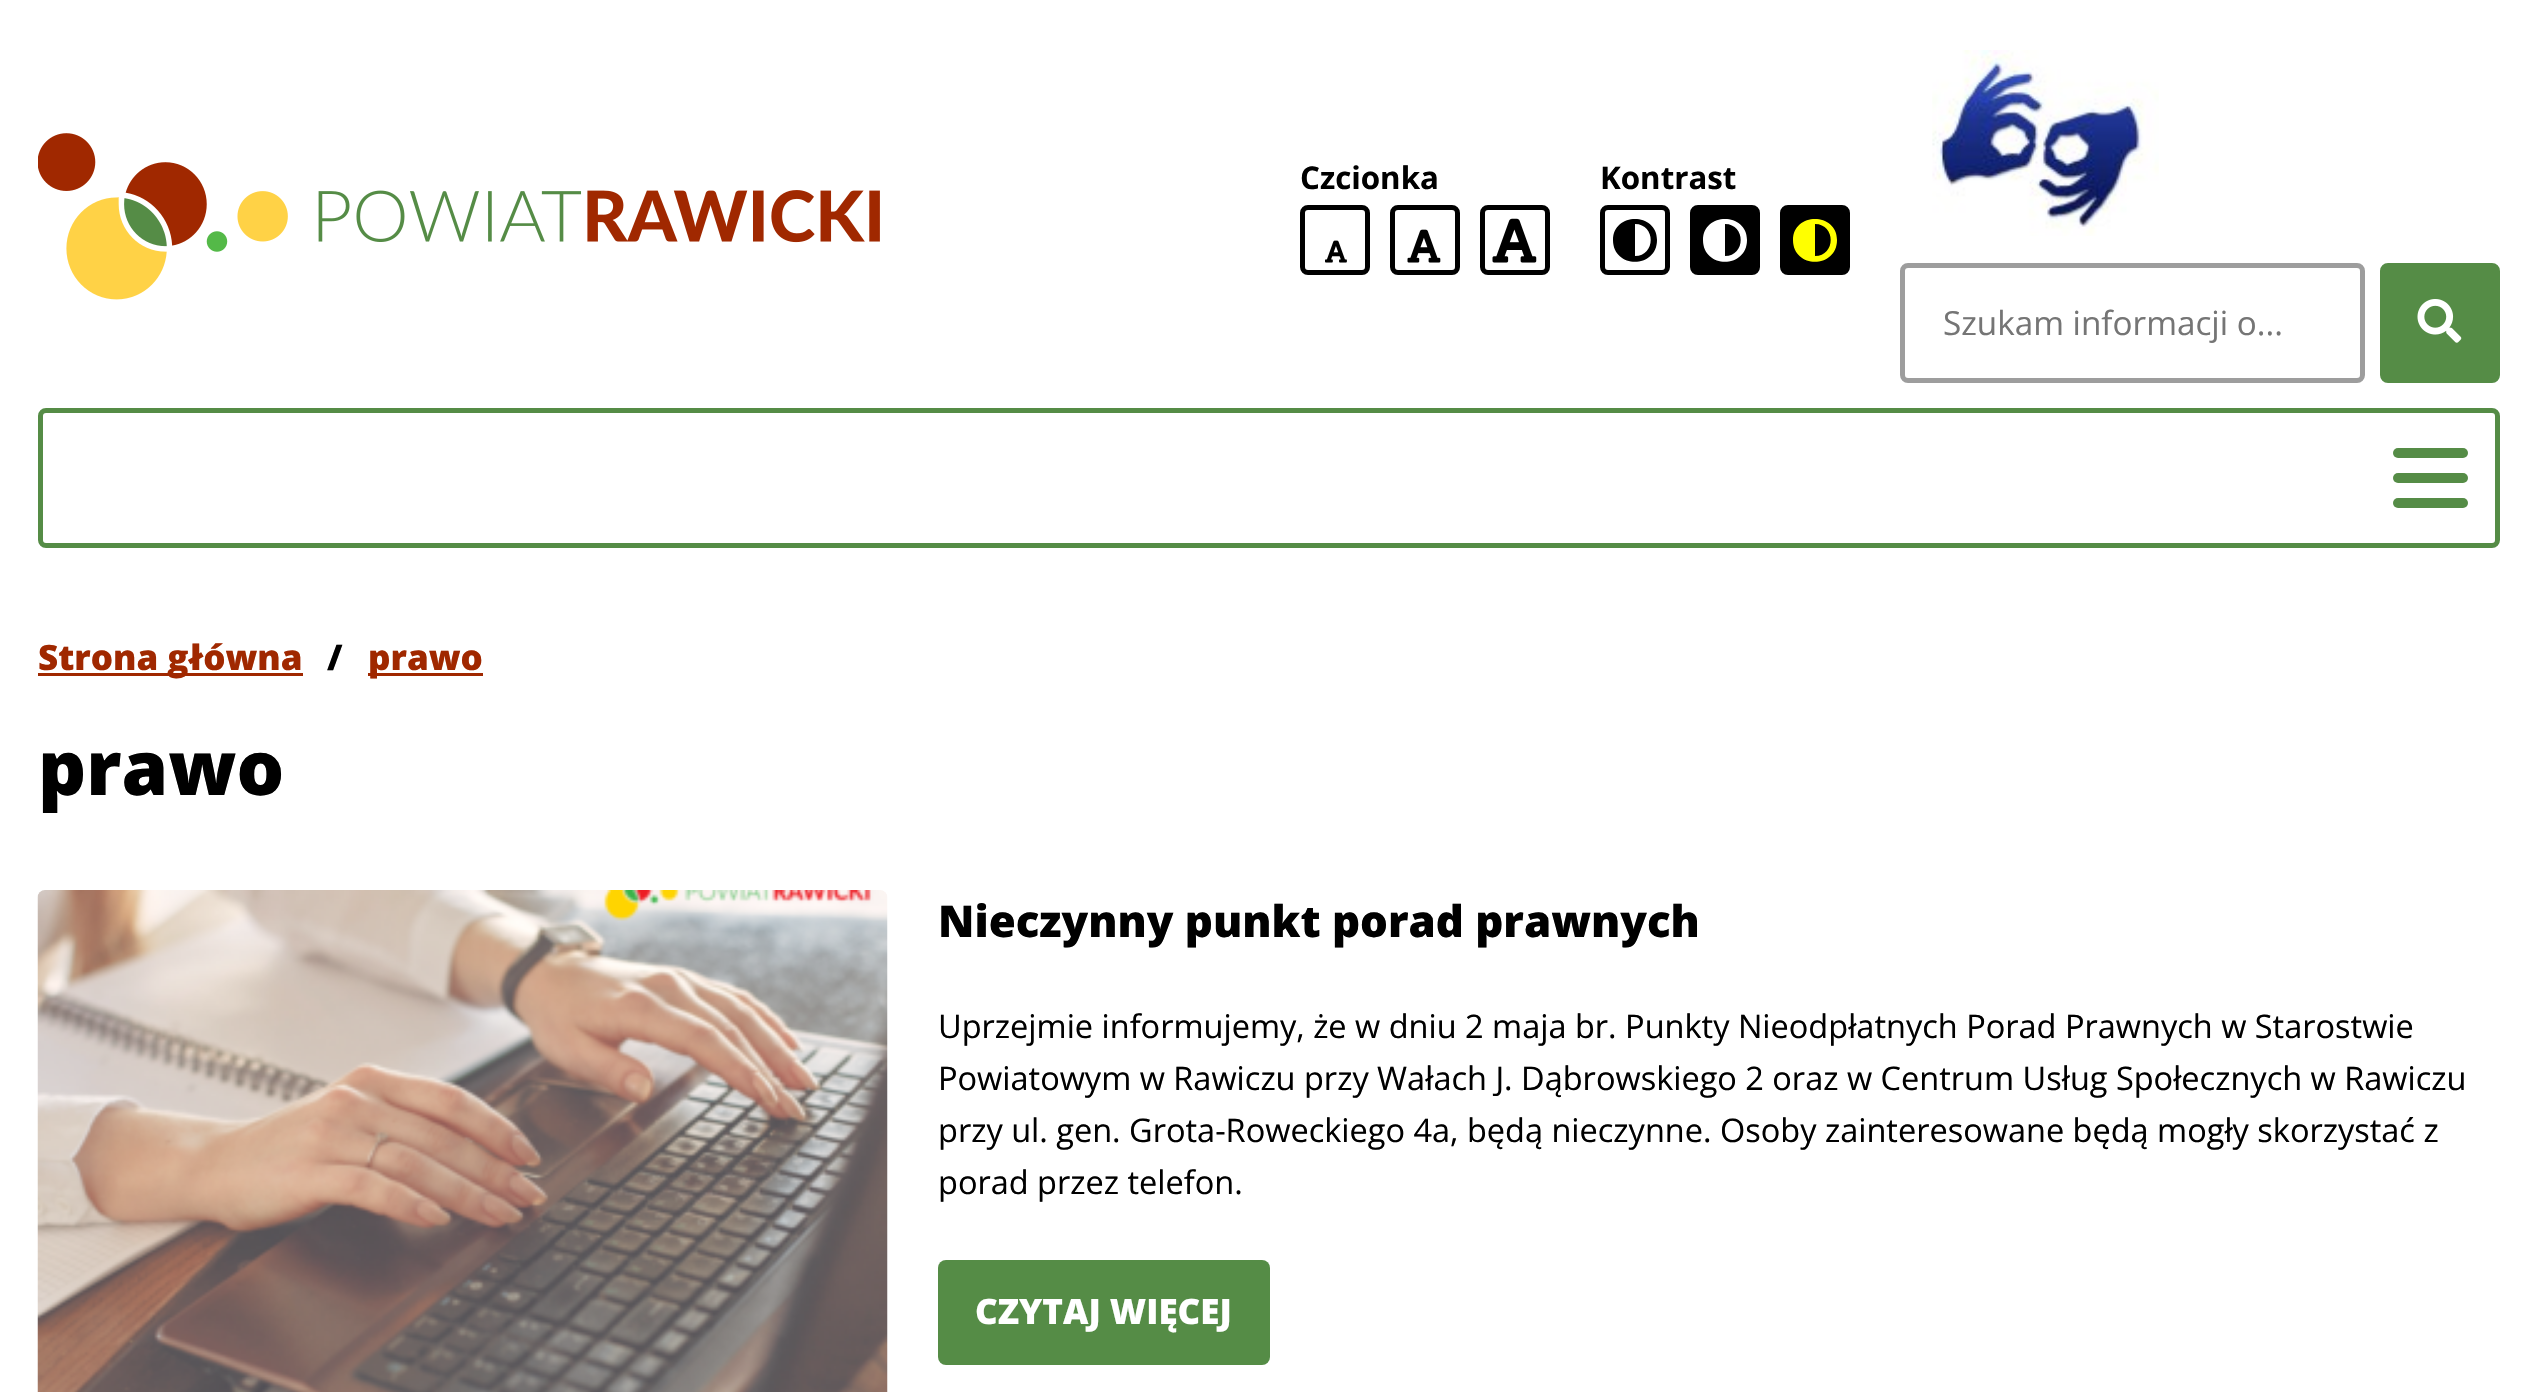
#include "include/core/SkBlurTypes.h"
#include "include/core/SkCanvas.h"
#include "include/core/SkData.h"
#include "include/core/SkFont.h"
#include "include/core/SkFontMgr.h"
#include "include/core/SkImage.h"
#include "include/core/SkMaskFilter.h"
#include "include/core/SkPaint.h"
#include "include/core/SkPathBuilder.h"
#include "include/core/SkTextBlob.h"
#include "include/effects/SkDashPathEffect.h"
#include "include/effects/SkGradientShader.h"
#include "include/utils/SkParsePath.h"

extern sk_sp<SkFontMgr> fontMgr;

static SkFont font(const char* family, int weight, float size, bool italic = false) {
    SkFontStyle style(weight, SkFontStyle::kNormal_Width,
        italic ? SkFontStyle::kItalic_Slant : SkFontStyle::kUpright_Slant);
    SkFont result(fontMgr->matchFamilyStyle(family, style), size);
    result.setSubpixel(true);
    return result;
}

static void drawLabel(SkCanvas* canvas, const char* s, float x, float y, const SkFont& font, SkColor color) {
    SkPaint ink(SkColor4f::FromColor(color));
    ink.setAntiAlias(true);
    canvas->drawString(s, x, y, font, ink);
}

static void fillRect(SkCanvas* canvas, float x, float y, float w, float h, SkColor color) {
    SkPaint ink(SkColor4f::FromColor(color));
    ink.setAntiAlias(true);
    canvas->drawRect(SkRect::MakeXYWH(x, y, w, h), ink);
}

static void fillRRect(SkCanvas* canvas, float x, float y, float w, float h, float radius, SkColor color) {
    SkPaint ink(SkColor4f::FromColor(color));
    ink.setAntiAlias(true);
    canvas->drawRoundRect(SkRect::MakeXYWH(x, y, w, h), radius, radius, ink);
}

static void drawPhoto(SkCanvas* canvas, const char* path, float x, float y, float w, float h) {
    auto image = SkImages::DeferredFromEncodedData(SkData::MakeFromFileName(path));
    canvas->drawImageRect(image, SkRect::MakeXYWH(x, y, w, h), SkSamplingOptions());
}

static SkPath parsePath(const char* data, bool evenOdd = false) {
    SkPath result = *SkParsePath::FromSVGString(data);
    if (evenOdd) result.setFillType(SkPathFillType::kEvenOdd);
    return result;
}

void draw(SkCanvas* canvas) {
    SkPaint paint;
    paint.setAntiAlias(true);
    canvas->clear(0xFFFFFFFF);
    drawPhoto(canvas, "assets/img1.png", 38, 133, 842, 167);
    SkFont font1 = font("Open Sans", 700, 31.25f);
    drawLabel(canvas, "Czcionka", 1300, 189, font1, 0xFF000000);
    paint.setStroke(true);
    paint.setStrokeWidth(5);
    paint.setColor(0xFF000000);
    canvas->drawRoundRect(SkRect::MakeXYWH(1302.5f, 207.5f, 65, 65), 5.5f, 5.5f, paint);
    drawPhoto(canvas, "assets/img2.png", 1325, 240, 22, 23);
    canvas->drawRoundRect(SkRect::MakeXYWH(1392.5f, 207.5f, 65, 65), 5.5f, 5.5f, paint);
    drawPhoto(canvas, "assets/img3.png", 1407, 229, 34, 34);
    canvas->drawRoundRect(SkRect::MakeXYWH(1482.5f, 207.5f, 65, 65), 5.5f, 5.5f, paint);
    drawPhoto(canvas, "assets/img4.png", 1492, 218, 45, 45);
    drawLabel(canvas, "Kontrast", 1600, 189, font1, 0xFF000000);
    canvas->drawRoundRect(SkRect::MakeXYWH(1602.5f, 207.5f, 65, 65), 5.5f, 5.5f, paint);
    paint.setStroke(false);
    canvas->drawPath(parsePath("M1613 240C1613 269 1657 269 1657 240C1657 212 1613 212 1613 240ZM1635 256V224C1656 224 1656 256 1635 256Z"), paint);
    canvas->drawRoundRect(SkRect::MakeXYWH(1692.5f, 207.5f, 65, 65), 5.5f, 5.5f, paint);
    paint.setStroke(true);
    canvas->drawRoundRect(SkRect::MakeXYWH(1692.5f, 207.5f, 65, 65), 5.5f, 5.5f, paint);
    paint.setStroke(false);
    paint.setColor(0xFFFFFFFF);
    canvas->drawPath(parsePath("M1703 240C1703 269 1747 269 1747 240C1747 212 1703 212 1703 240ZM1725 256V224C1746 224 1746 256 1725 256Z"), paint);
    paint.setColor(0xFF000000);
    canvas->drawRoundRect(SkRect::MakeXYWH(1782.5f, 207.5f, 65, 65), 5.5f, 5.5f, paint);
    paint.setStroke(true);
    canvas->drawRoundRect(SkRect::MakeXYWH(1782.5f, 207.5f, 65, 65), 5.5f, 5.5f, paint);
    paint.setStroke(false);
    paint.setColor(0xFFFFFF00);
    canvas->drawPath(parsePath("M1793 240C1793 269 1837 269 1837 240C1837 212 1793 212 1793 240ZM1815 256V224C1836 224 1836 256 1815 256Z"), paint);
    drawPhoto(canvas, "assets/img5.png", 1932, 50, 227, 186);
    paint.setStroke(true);
    paint.setColor(0xFF9D9D9D);
    canvas->drawRoundRect(SkRect::MakeXYWH(1902.5f, 265.5f, 460, 115), 5.5f, 5.5f, paint);
    SkFont font2 = font("Open Sans", 400, 33.25f);
    drawLabel(canvas, "Szukam informacji o...", 1943, 335, font2, 0xFF757575);
    paint.setStroke(false);
    paint.setColor(0xFF558C46);
    canvas->drawRoundRect(SkRect::MakeXYWH(2382.5f, 265.5f, 115, 115), 5.5f, 5.5f, paint);
    paint.setStroke(true);
    canvas->drawRoundRect(SkRect::MakeXYWH(2382.5f, 265.5f, 115, 115), 5.5f, 5.5f, paint);
    drawPhoto(canvas, "assets/img6.png", 2417, 299, 45, 44);
    canvas->drawRoundRect(SkRect::MakeXYWH(40.5f, 410.5f, 2457, 135), 5.5f, 5.5f, paint);
    fillRRect(canvas, 2393, 448, 75, 10, 5, 0xFF558C46);
    fillRRect(canvas, 2393, 473, 75, 10, 5, 0xFF558C46);
    fillRRect(canvas, 2393, 498, 75, 10, 5, 0xFF558C46);
    fillRect(canvas, 38, 673, 265, 3, 0xFFA02800);
    SkFont font3 = font("Open Sans", 800, 35);
    drawLabel(canvas, "Strona główna", 38, 670, font3, 0xFFA02800);
    drawLabel(canvas, "/", 327, 670, font3, 0xFF000000);
    fillRect(canvas, 368, 673, 115, 3, 0xFFA02800);
    drawLabel(canvas, "prawo", 368, 670, font3, 0xFFA02800);
    SkFont font4 = font("Open Sans", 800, 75);
    drawLabel(canvas, "prawo", 38, 795, font4, 0xFF000000);
    drawPhoto(canvas, "assets/img7.png", 37, 890, 851, 502);
    SkFont font5 = font("Open Sans", 800, 43.75f);
    drawLabel(canvas, "Nieczynny punkt porad prawnych", 938, 937, font5, 0xFF000000);
    SkFont font6 = font("Open Sans", 400, 32.5f);
    drawLabel(canvas, "Uprzejmie informujemy, że w dniu 2 maja br. Punkty Nieodpłatnych Porad Prawnych w Starostwie", 938, 1038, font6, 0xFF000000);
    drawLabel(canvas, "Powiatowym w Rawiczu przy Wałach J. Dąbrowskiego 2 oraz w Centrum Usług Społecznych w Rawiczu", 938, 1090, font6, 0xFF000000);
    drawLabel(canvas, "przy ul. gen. Grota-Roweckiego 4a, będą nieczynne. Osoby zainteresowane będą mogły skorzystać z", 938, 1142, font6, 0xFF000000);
    drawLabel(canvas, "porad przez telefon.", 938, 1194, font6, 0xFF000000);
    fillRRect(canvas, 938, 1260, 332, 105, 8, 0xFF558C46);
    drawLabel(canvas, "CZYTAJ WIĘCEJ", 975, 1324, font3, 0xFFFFFFFF);
}
